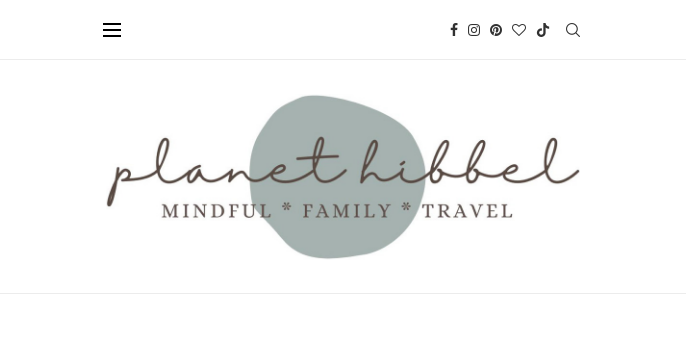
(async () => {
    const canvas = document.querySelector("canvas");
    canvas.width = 686;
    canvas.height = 355;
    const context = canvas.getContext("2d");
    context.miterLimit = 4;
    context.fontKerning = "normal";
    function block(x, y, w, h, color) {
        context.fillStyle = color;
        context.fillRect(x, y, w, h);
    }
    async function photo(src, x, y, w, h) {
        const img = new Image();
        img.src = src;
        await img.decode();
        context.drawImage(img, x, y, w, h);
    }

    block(0, 0, 686, 355, "rgb(255, 255, 255)");
    block(0, 59, 686, 1, "rgb(236, 236, 236)");
    block(103, 23, 18, 2, "rgb(0, 0, 0)");
    block(103, 29, 18, 2, "rgb(0, 0, 0)");
    block(103, 35, 18, 2, "rgb(0, 0, 0)");
    await photo("media/1.png", 450, 23, 8, 13);
    await photo("media/2.png", 468, 24, 12, 12);
    await photo("media/3.png", 490, 24, 12, 12);
    await photo("media/4.png", 512, 24, 14, 12);
    await photo("media/5.png", 536, 23, 14, 14);
    await photo("media/6.png", 566, 23, 14, 14);
    block(0, 293, 686, 1, "rgb(236, 236, 236)");
    await photo("media/7.png", 106, 94, 474, 166);
})();
